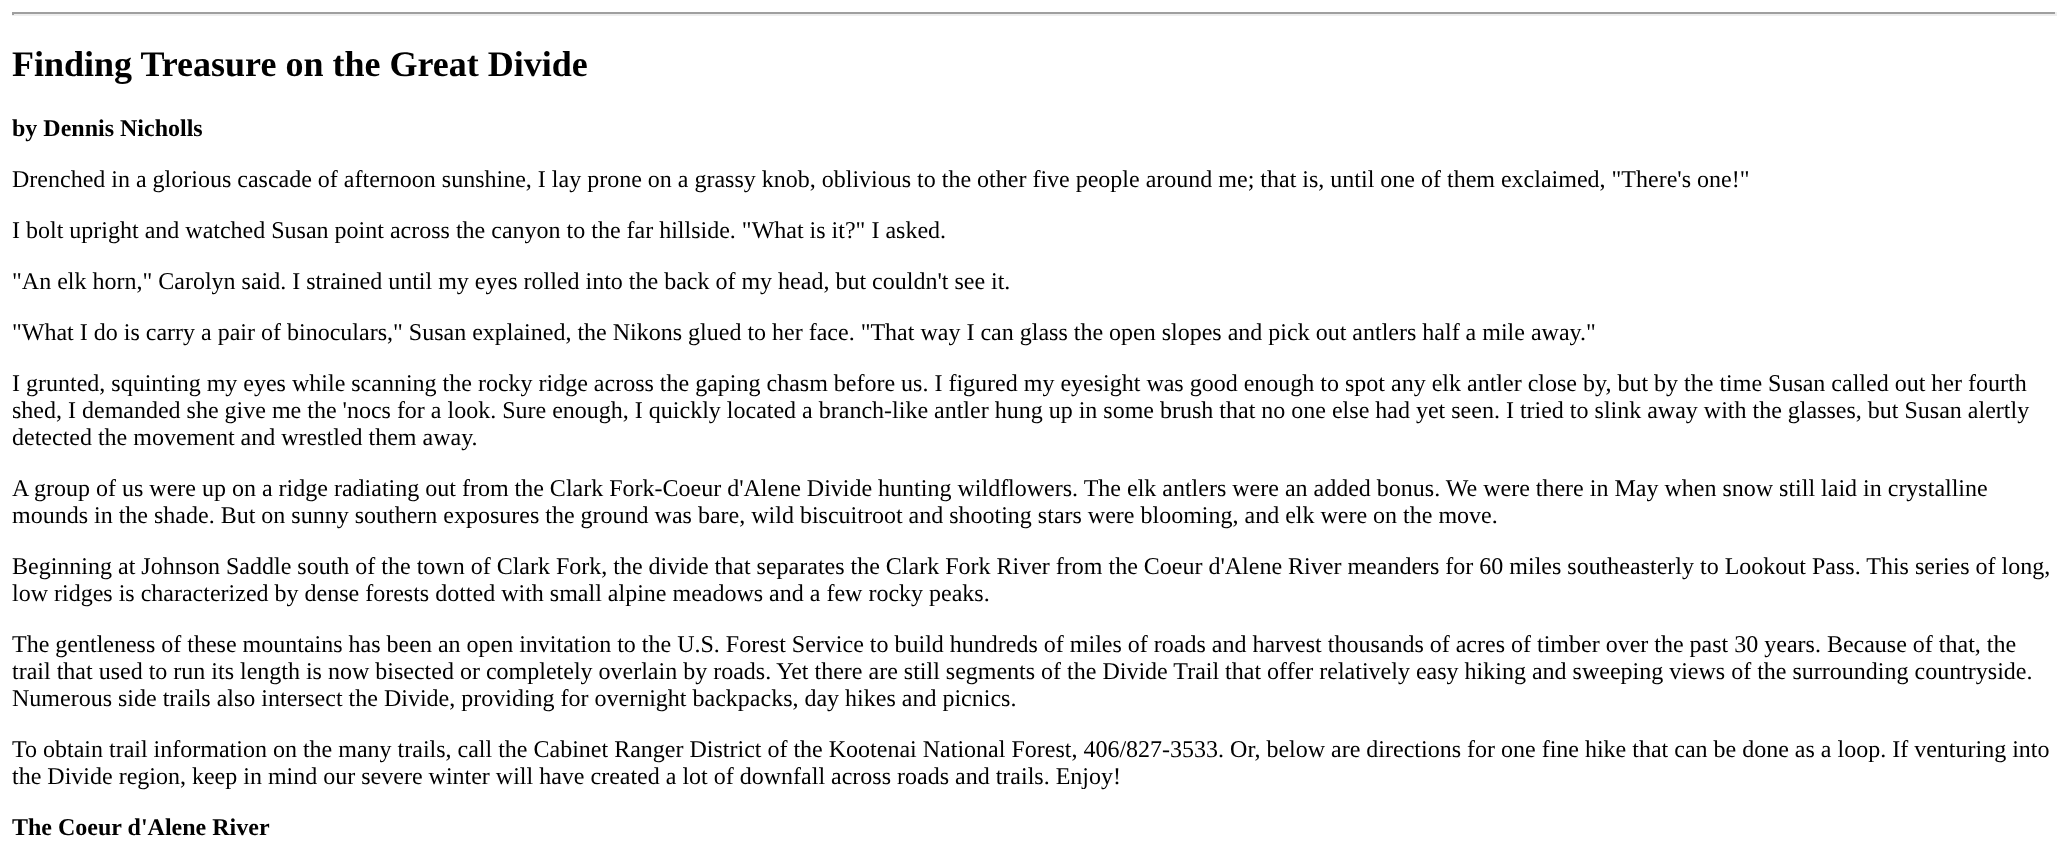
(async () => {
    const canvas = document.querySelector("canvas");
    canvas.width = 2068;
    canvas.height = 847;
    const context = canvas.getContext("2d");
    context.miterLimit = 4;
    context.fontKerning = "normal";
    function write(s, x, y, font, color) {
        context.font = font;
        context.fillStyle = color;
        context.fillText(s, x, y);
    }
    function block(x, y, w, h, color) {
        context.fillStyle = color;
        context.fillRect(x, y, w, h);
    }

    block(0, 0, 2068, 847, "rgb(255, 255, 255)");
    block(12, 12, 2045, 2, "rgb(159, 159, 159)");
    block(2055, 12, 2, 3, "rgb(238, 238, 238)");
    block(12, 14, 2045, 2, "rgb(238, 238, 238)");
    block(12, 12, 2, 3, "rgb(159, 159, 159)");
    write("Finding Treasure on the Great Divide", 12, 76, "bold 36px Liberation Serif", "rgb(0, 0, 0)");
    write("by Dennis Nicholls", 12, 136, "bold 24px Liberation Serif", "rgb(0, 0, 0)");
    write("Drenched in a glorious cascade of afternoon sunshine, I lay prone on a grassy knob, oblivious to the other five people around me; that is, until one of them exclaimed, \"There's one!\"", 12, 187, "24px Liberation Serif", "rgb(0, 0, 0)");
    write("I bolt upright and watched Susan point across the canyon to the far hillside. \"What is it?\" I asked.", 12, 238, "24px Liberation Serif", "rgb(0, 0, 0)");
    write("\"An elk horn,\" Carolyn said. I strained until my eyes rolled into the back of my head, but couldn't see it.", 12, 289, "24px Liberation Serif", "rgb(0, 0, 0)");
    write("\"What I do is carry a pair of binoculars,\" Susan explained, the Nikons glued to her face. \"That way I can glass the open slopes and pick out antlers half a mile away.\"", 12, 340, "24px Liberation Serif", "rgb(0, 0, 0)");
    write("I grunted, squinting my eyes while scanning the rocky ridge across the gaping chasm before us. I figured my eyesight was good enough to spot any elk antler close by, but by the time Susan called out her fourth", 12, 391, "24px Liberation Serif", "rgb(0, 0, 0)");
    write("shed, I demanded she give me the 'nocs for a look. Sure enough, I quickly located a branch-like antler hung up in some brush that no one else had yet seen. I tried to slink away with the glasses, but Susan alertly", 12, 418, "24px Liberation Serif", "rgb(0, 0, 0)");
    write("detected the movement and wrestled them away.", 12, 445, "24px Liberation Serif", "rgb(0, 0, 0)");
    write("A group of us were up on a ridge radiating out from the Clark Fork-Coeur d'Alene Divide hunting wildflowers. The elk antlers were an added bonus. We were there in May when snow still laid in crystalline", 12, 496, "24px Liberation Serif", "rgb(0, 0, 0)");
    write("mounds in the shade. But on sunny southern exposures the ground was bare, wild biscuitroot and shooting stars were blooming, and elk were on the move.", 12, 523, "24px Liberation Serif", "rgb(0, 0, 0)");
    write("Beginning at Johnson Saddle south of the town of Clark Fork, the divide that separates the Clark Fork River from the Coeur d'Alene River meanders for 60 miles southeasterly to Lookout Pass. This series of long,", 12, 574, "24px Liberation Serif", "rgb(0, 0, 0)");
    write("low ridges is characterized by dense forests dotted with small alpine meadows and a few rocky peaks.", 12, 601, "24px Liberation Serif", "rgb(0, 0, 0)");
    write("The gentleness of these mountains has been an open invitation to the U.S. Forest Service to build hundreds of miles of roads and harvest thousands of acres of timber over the past 30 years. Because of that, the", 12, 652, "24px Liberation Serif", "rgb(0, 0, 0)");
    write("trail that used to run its length is now bisected or completely overlain by roads. Yet there are still segments of the Divide Trail that offer relatively easy hiking and sweeping views of the surrounding countryside.", 12, 679, "24px Liberation Serif", "rgb(0, 0, 0)");
    write("Numerous side trails also intersect the Divide, providing for overnight backpacks, day hikes and picnics.", 12, 706, "24px Liberation Serif", "rgb(0, 0, 0)");
    write("To obtain trail information on the many trails, call the Cabinet Ranger District of the Kootenai National Forest, 406/827-3533. Or, below are directions for one fine hike that can be done as a loop. If venturing into", 12, 757, "24px Liberation Serif", "rgb(0, 0, 0)");
    write("the Divide region, keep in mind our severe winter will have created a lot of downfall across roads and trails. Enjoy!", 12, 784, "24px Liberation Serif", "rgb(0, 0, 0)");
    write("The Coeur d'Alene River", 12, 835, "bold 24px Liberation Serif", "rgb(0, 0, 0)");
})();
